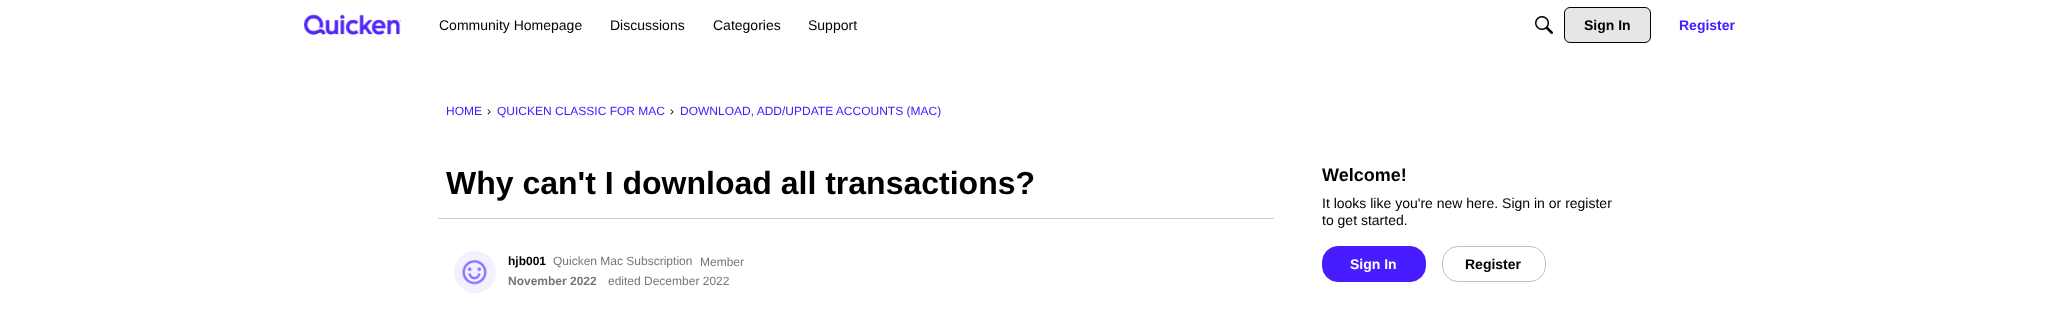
(async () => {
    const canvas = document.querySelector("canvas");
    canvas.width = 2059;
    canvas.height = 317;
    const context = canvas.getContext("2d");
    context.miterLimit = 4;
    context.fontKerning = "normal";
    function write(s, x, y, font, color) {
        context.font = font;
        context.fillStyle = color;
        context.fillText(s, x, y);
    }
    function block(x, y, w, h, color) {
        context.fillStyle = color;
        context.fillRect(x, y, w, h);
    }
    async function photo(src, x, y, w, h) {
        const img = new Image();
        img.src = src;
        await img.decode();
        context.drawImage(img, x, y, w, h);
    }

    block(0, 0, 2059, 317, "rgb(255, 255, 255)");
    await photo("media/1.png", 303, 14, 98, 22);
    write("Community Homepage", 439, 30, "14px Liberation Sans", "rgb(0, 0, 0)");
    write("Discussions", 610, 30, "14px Liberation Sans", "rgb(0, 0, 0)");
    write("Categories", 713, 30, "14px Liberation Sans", "rgb(0, 0, 0)");
    write("Support", 808, 30, "14px Liberation Sans", "rgb(0, 0, 0)");
    await photo("media/2.png", 1535, 16, 18, 18);
    context.fillStyle = "rgb(230, 230, 230)";
    context.beginPath();
    context.roundRect(1564.5, 7.5, 86, 35, 5.5);
    context.fill();
    context.strokeStyle = "rgb(0, 0, 0)";
    context.stroke();
    write("Sign In", 1584, 30, "bold 14px Liberation Sans", "rgb(0, 0, 0)");
    write("Register", 1679, 30, "bold 14px Liberation Sans", "rgb(71, 28, 255)");
    write("HOME", 446, 115, "12px Liberation Sans", "rgb(71, 28, 255)");
    write("›", 487, 115, "12px Liberation Sans", "rgb(0, 0, 0)");
    write("QUICKEN CLASSIC FOR MAC", 497, 115, "12px Liberation Sans", "rgb(71, 28, 255)");
    write("›", 670, 115, "12px Liberation Sans", "rgb(0, 0, 0)");
    write("DOWNLOAD, ADD/UPDATE ACCOUNTS (MAC)", 680, 115, "12px Liberation Sans", "rgb(71, 28, 255)");
    write("Why can't I download all transactions?", 446, 194, "bold 32px Liberation Sans", "rgb(0, 0, 0)");
    block(438, 218, 836, 1, "rgb(204, 204, 204)");
    await photo("media/3.png", 454, 251, 42, 42);
    write("hjb001", 508, 265, "bold 12px Liberation Sans", "rgb(0, 0, 0)");
    write("Quicken Mac Subscription", 553, 265, "12px Liberation Sans", "rgb(118, 118, 118)");
    write("Member", 700, 266, "12px Liberation Sans", "rgb(118, 118, 118)");
    write("November 2022", 508, 285, "bold 12px Liberation Sans", "rgb(118, 118, 118)");
    write("edited December 2022", 608, 285, "12px Liberation Sans", "rgb(118, 118, 118)");
    write("Welcome!", 1322, 181, "bold 18px Liberation Sans", "rgb(0, 0, 0)");
    write("It looks like you're new here. Sign in or register", 1322, 208, "14px Liberation Sans", "rgb(0, 0, 0)");
    write("to get started.", 1322, 225, "14px Liberation Sans", "rgb(0, 0, 0)");
    context.fillStyle = "rgb(71, 28, 255)";
    context.beginPath();
    context.roundRect(1322.5, 246.5, 103, 35, 15.5);
    context.fill();
    context.strokeStyle = "rgb(71, 28, 255)";
    context.stroke();
    write("Sign In", 1350, 269, "bold 14px Liberation Sans", "rgb(255, 255, 255)");
    context.beginPath();
    context.roundRect(1442.5, 246.5, 103, 35, 15.5);
    context.strokeStyle = "rgb(194, 194, 194)";
    context.stroke();
    write("Register", 1465, 269, "bold 14px Liberation Sans", "rgb(0, 0, 0)");
})();
